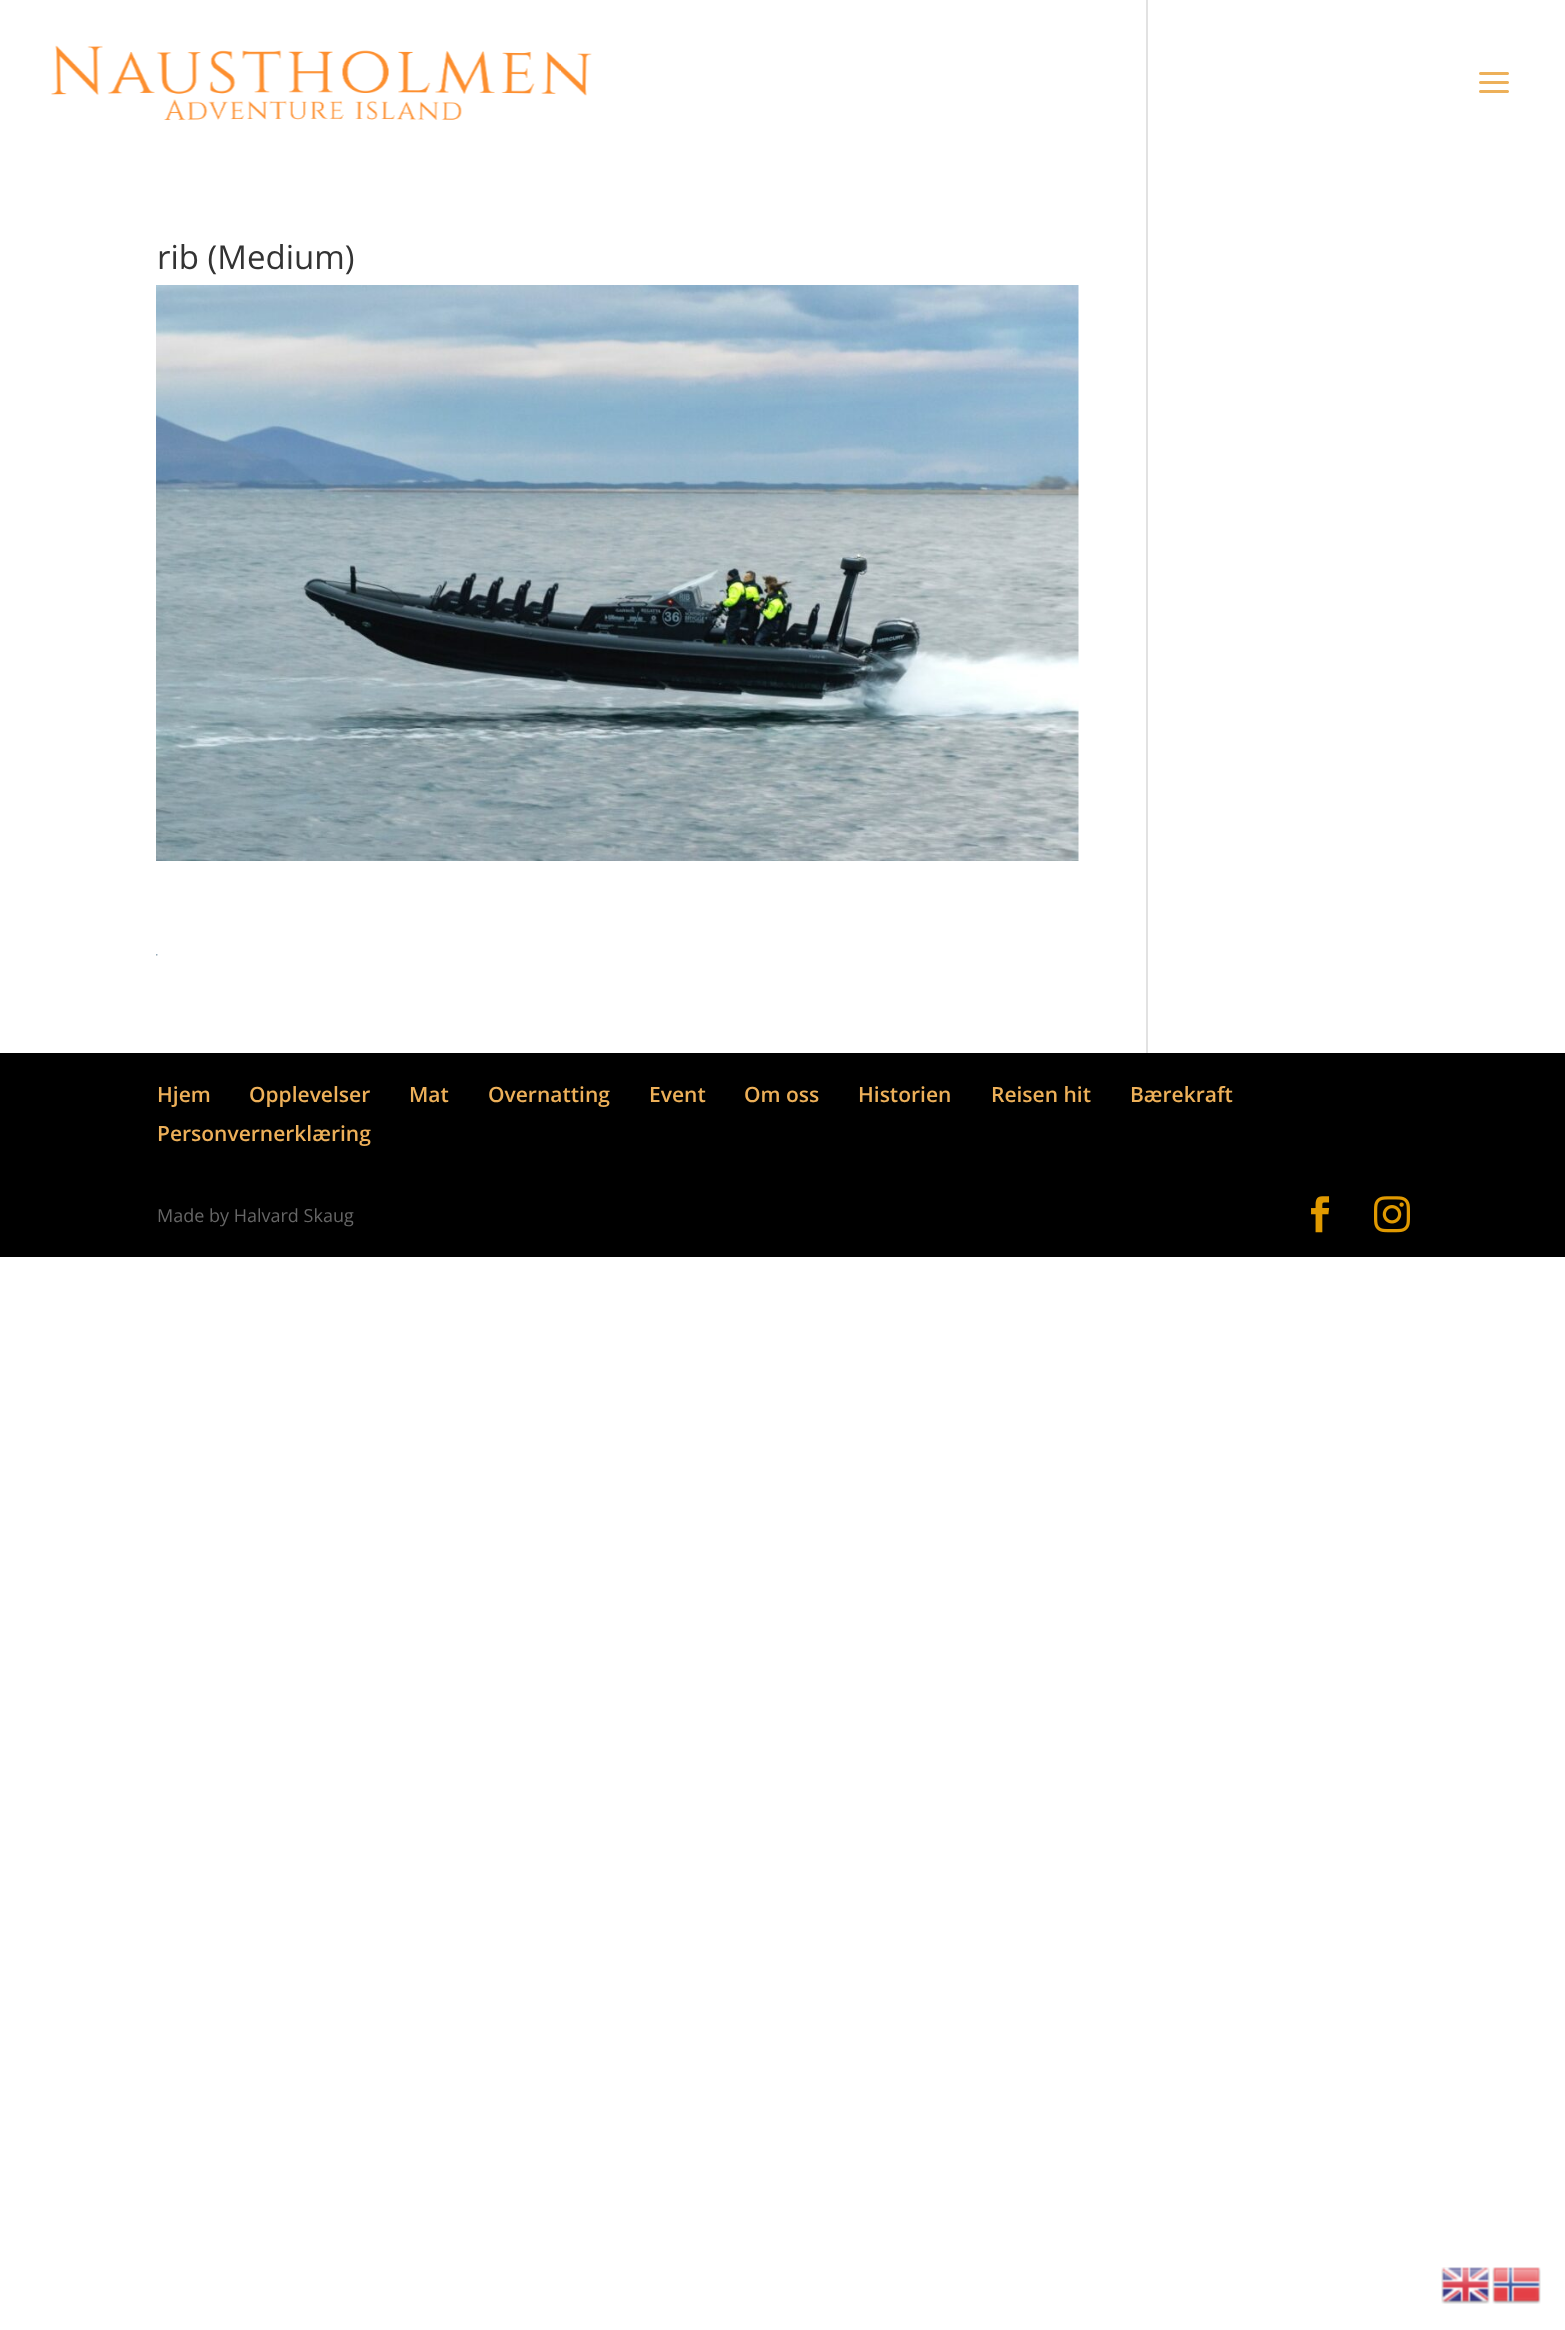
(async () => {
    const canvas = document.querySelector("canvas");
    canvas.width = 1565;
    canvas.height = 2330;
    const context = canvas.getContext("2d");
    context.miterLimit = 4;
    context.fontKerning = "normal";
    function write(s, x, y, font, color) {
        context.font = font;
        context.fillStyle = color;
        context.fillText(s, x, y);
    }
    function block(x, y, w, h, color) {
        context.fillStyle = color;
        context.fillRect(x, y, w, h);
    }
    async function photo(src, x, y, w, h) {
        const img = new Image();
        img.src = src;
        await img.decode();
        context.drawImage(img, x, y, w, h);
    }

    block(0, 0, 1565, 2330, "rgb(255, 255, 255)");
    await photo("media/1.png", 51, 45, 541, 75);
    await photo("media/2.png", 1479, 72, 30, 21);
    write("rib (Medium)", 157, 269, "33px Open Sans", "rgb(51, 51, 51)");
    await photo("media/3.png", 156, 285, 923, 576);
    await photo("media/4.png", 156, 954, 2, 2);
    block(1146, 0, 2, 1053, "rgb(226, 226, 226)");
    block(0, 1053, 1565, 204, "rgb(0, 0, 0)");
    write("Hjem", 157, 1102, "600 21px Open Sans", "rgb(237, 176, 89)");
    write("Opplevelser", 249, 1102, "600 21px Open Sans", "rgb(237, 176, 89)");
    write("Mat", 409, 1102, "600 21px Open Sans", "rgb(237, 176, 89)");
    write("Overnatting", 488, 1102, "600 21px Open Sans", "rgb(237, 176, 89)");
    write("Event", 649, 1102, "600 21px Open Sans", "rgb(237, 176, 89)");
    write("Om oss", 744, 1102, "600 21px Open Sans", "rgb(237, 176, 89)");
    write("Historien", 858, 1102, "600 21px Open Sans", "rgb(237, 176, 89)");
    write("Reisen hit", 991, 1102, "600 21px Open Sans", "rgb(237, 176, 89)");
    write("Bærekraft", 1130, 1102, "600 21px Open Sans", "rgb(237, 176, 89)");
    write("Personvernerklæring", 157, 1141, "600 21px Open Sans", "rgb(237, 176, 89)");
    write("Made by Halvard Skaug", 157, 1222, "18px Open Sans", "rgb(102, 102, 102)");
    await photo("media/5.png", 1311, 1196, 19, 37);
    await photo("media/6.png", 1374, 1196, 36, 37);
    await photo("media/7.png", 1441, 2267, 49, 37);
    await photo("media/8.png", 1492, 2267, 49, 37);
})();
